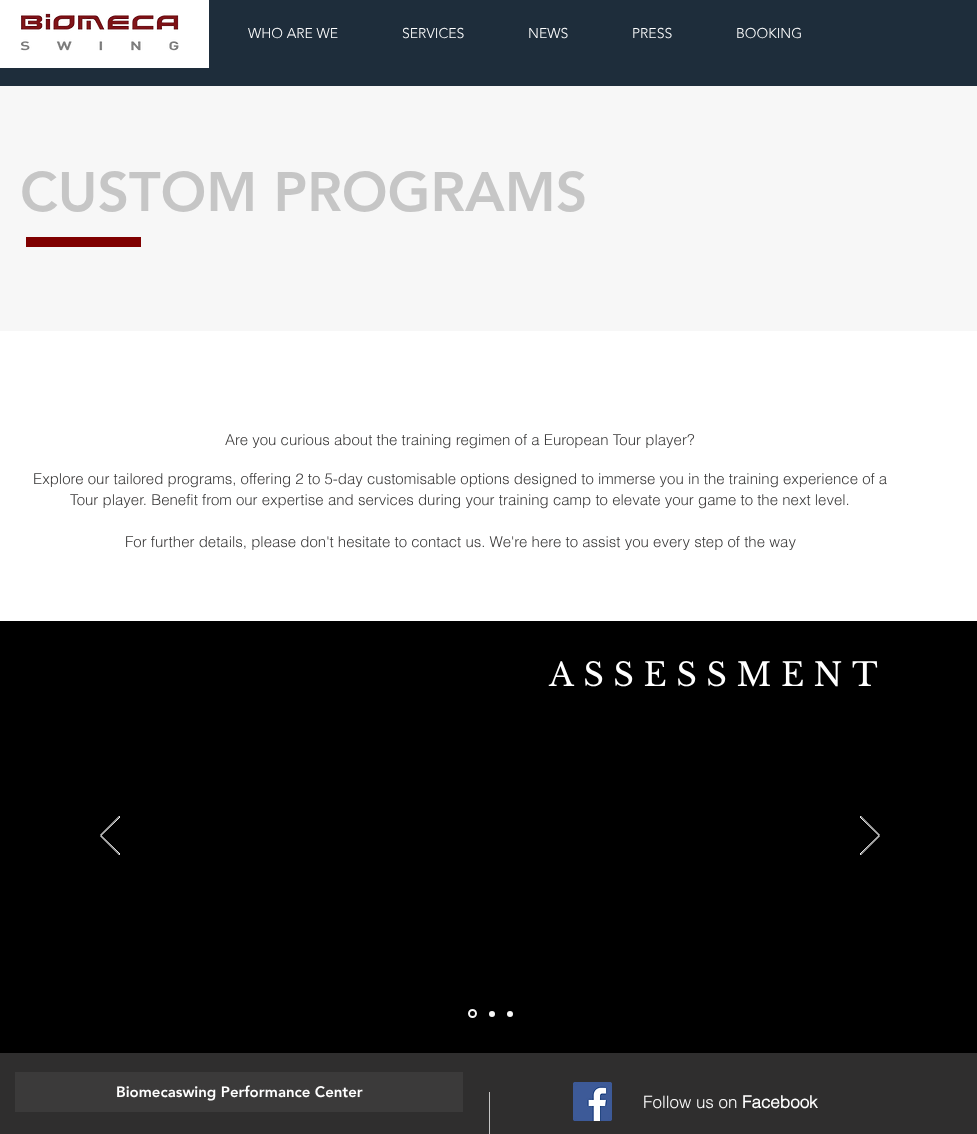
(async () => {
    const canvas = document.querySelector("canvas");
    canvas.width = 977;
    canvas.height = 1134;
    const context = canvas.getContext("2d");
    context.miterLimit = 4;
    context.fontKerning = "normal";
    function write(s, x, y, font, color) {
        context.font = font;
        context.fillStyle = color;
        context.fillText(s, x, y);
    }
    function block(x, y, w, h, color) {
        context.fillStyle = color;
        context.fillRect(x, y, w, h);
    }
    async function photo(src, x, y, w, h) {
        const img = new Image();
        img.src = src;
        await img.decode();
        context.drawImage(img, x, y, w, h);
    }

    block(0, 0, 977, 1134, "rgb(247, 247, 247)");
    block(0, 0, 977, 86, "rgb(30, 45, 59)");
    block(0, 0, 209, 68, "rgb(255, 255, 255)");
    await photo("media/1.png", 20, 13, 159, 38);
    write("WHO ARE WE", 248, 38, "300 14px 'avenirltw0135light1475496'", "rgb(255, 255, 255)");
    write("SERVICES", 402, 38, "300 14px 'avenirltw0135light1475496'", "rgb(255, 255, 255)");
    write("NEWS", 528, 38, "300 14px 'avenirltw0135light1475496'", "rgb(255, 255, 255)");
    write("PRESS", 632, 38, "300 14px 'avenirltw0135light1475496'", "rgb(255, 255, 255)");
    write("BOOKING", 736, 38, "300 14px 'avenirltw0135light1475496'", "rgb(255, 255, 255)");
    write("CUSTOM PROGRAMS", 20, 211, "900 55px 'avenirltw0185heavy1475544'", "rgb(198, 198, 198)");
    block(26, 237, 115, 10, "rgb(128, 0, 0)");
    block(0, 331, 977, 290, "rgb(255, 255, 255)");
    write("Are you curious about the training regimen of a European Tour player?", 225, 445, "300 15px helvetica", "rgb(59, 58, 58)");
    write("Explore our tailored programs, offering 2 to 5-day customisable options designed to immerse you in the training experience of a", 33, 484, "300 15px helvetica", "rgb(59, 58, 58)");
    write("Tour player. Benefit from our expertise and services during your training camp to elevate your game to the next level.", 70, 505, "300 15px helvetica", "rgb(59, 58, 58)");
    write("For further details, please don't hesitate to contact us. We're here to assist you every step of the way", 125, 547, "300 15px helvetica", "rgb(59, 58, 58)");
    block(0, 621, 977, 432, "rgb(0, 0, 0)");
    context.letterSpacing = "9.5px";
    write("ASSESSMENT", 549, 686, "32px Libre Baskerville", "rgb(255, 255, 255)");
    context.save();
    context.beginPath();
    context.rect(100, 816, 20, 39);
    context.clip();
    context.beginPath();
    context.moveTo(119.5, 855);
    context.lineTo(100, 835.5);
    context.lineTo(119.5, 816);
    context.lineTo(120, 817);
    context.lineTo(101, 835.5);
    context.lineTo(120, 854);
    context.closePath();
    context.strokeStyle = "rgb(247, 247, 247)";
    context.stroke();
    context.restore();
    context.save();
    context.beginPath();
    context.rect(860, 816, 20, 39);
    context.clip();
    context.beginPath();
    context.moveTo(860.5, 855);
    context.lineTo(880, 835.5);
    context.lineTo(860.5, 816);
    context.lineTo(860, 817);
    context.lineTo(879, 835.5);
    context.lineTo(860, 854);
    context.closePath();
    context.strokeStyle = "rgb(247, 247, 247)";
    context.stroke();
    context.restore();
    context.beginPath();
    context.arc(472.5, 1013.5, 3.5, 0, Math.PI * 2);
    context.strokeStyle = "rgb(247, 247, 247)";
    context.lineWidth = 2;
    context.stroke();
    context.fillStyle = "rgb(247, 247, 247)";
    context.beginPath();
    context.arc(492, 1014, 3, 0, Math.PI * 2);
    context.fill();
    context.beginPath();
    context.arc(510, 1014, 3, 0, Math.PI * 2);
    context.fill();
    block(0, 1053, 977, 81, "rgb(47, 46, 46)");
    block(15, 1072, 448, 40, "rgb(59, 58, 58)");
    context.letterSpacing = "0px";
    write("Biomecaswing Performance Center", 116, 1097, "900 15px 'avenirltw0185heavy1475544'", "rgb(255, 255, 255)");
    block(489, 1092, 1, 42, "rgb(198, 198, 198)");
    await photo("media/2.png", 573, 1082, 39, 39);
    write("Follow us on", 643, 1108, "300 17px helvetica", "rgb(255, 255, 255)");
    write("Facebook", 742, 1108, "bold 17px helvetica", "rgb(255, 255, 255)");
})();
